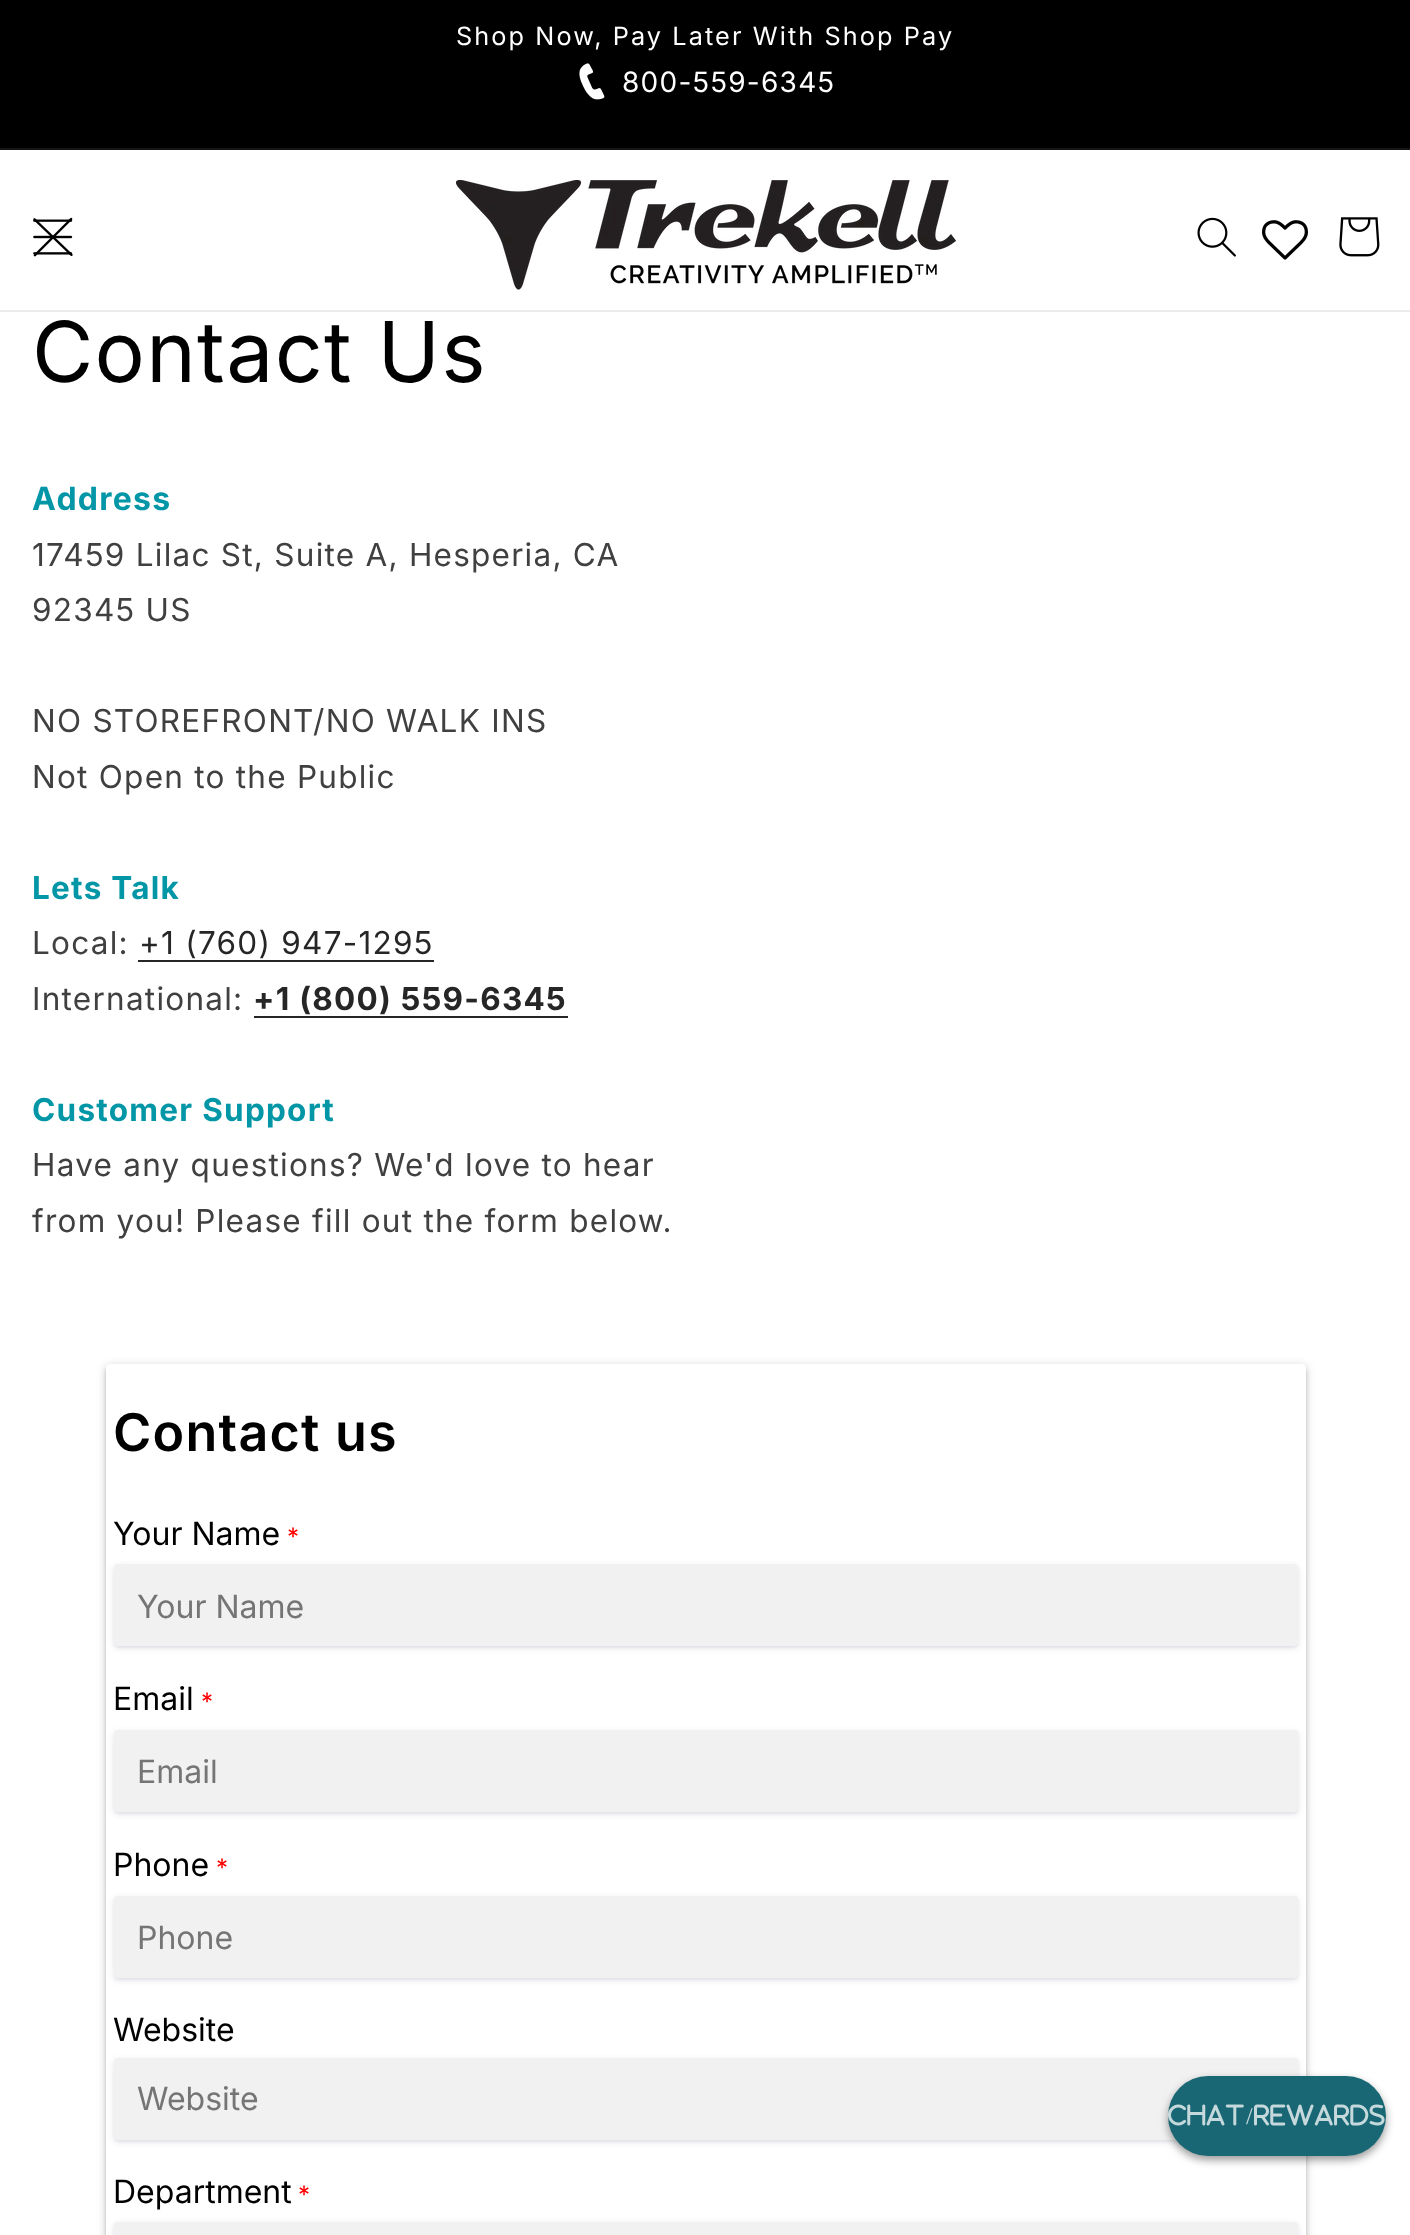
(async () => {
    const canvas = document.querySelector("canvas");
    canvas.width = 1410;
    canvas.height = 2235;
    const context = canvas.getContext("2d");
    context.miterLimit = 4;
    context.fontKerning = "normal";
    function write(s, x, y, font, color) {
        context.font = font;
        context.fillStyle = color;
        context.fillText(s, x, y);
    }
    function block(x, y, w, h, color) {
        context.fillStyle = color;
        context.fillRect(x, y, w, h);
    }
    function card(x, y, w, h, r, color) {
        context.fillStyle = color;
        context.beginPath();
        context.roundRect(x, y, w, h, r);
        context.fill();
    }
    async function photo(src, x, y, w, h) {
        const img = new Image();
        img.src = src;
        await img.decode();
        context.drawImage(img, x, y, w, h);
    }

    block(0, 0, 1410, 2235, "rgb(255, 255, 255)");
    block(0, 0, 1410, 148, "rgb(0, 0, 0)");
    block(0, 148, 1410, 2, "rgb(20, 20, 20)");
    context.letterSpacing = "2.1px";
    write("Shop Now, Pay Later With Shop Pay", 456, 45, "25.25px Inter", "rgb(255, 255, 255)");
    await photo("media/1.png", 579, 63, 26, 37);
    context.letterSpacing = "1.25px";
    write("800-559-6345", 622, 92, "28px Inter", "rgb(255, 255, 255)");
    block(0, 310, 1410, 2, "rgb(235, 235, 235)");
    await photo("media/3.png", 33, 219, 40, 36);
    await photo("media/2.png", 33, 217, 40, 40);
    await photo("media/4.png", 456, 180, 500, 110);
    await photo("media/5.png", 1197, 217, 39, 40);
    await photo("media/6.png", 1262, 220, 46, 40);
    await photo("media/7.png", 1339, 217, 41, 40);
    write("Contact Us", 32, 382, "84px Inter", "rgb(0, 0, 0)");
    write("Address", 32, 510, "bold 32px Inter", "rgb(3, 150, 166)");
    write("17459 Lilac St, Suite A, Hesperia, CA", 32, 566, "31.5px Inter", "rgb(64, 64, 64)");
    write("92345 US", 32, 621, "31.5px Inter", "rgb(64, 64, 64)");
    write("NO STOREFRONT/NO WALK INS", 32, 732, "31.5px Inter", "rgb(64, 64, 64)");
    write("Not Open to the Public", 32, 788, "31.5px Inter", "rgb(64, 64, 64)");
    write("Lets Talk", 32, 899, "bold 31.5px Inter", "rgb(3, 150, 166)");
    write("Local:", 32, 954, "31.5px Inter", "rgb(64, 64, 64)");
    write("+1 (760) 947-1295", 139, 954, "31.5px Inter", "rgb(38, 38, 38)");
    block(138, 960, 296, 2, "rgb(38, 38, 38)");
    write("International:", 32, 1010, "31.5px Inter", "rgb(64, 64, 64)");
    write("+1 (800) 559-6345", 253, 1010, "bold 31.5px Inter", "rgb(38, 38, 38)");
    block(254, 1016, 314, 2, "rgb(38, 38, 38)");
    write("Customer Support", 32, 1121, "bold 31.5px Inter", "rgb(3, 150, 166)");
    write("Have any questions? We'd love to hear", 32, 1176, "31.5px Inter", "rgb(64, 64, 64)");
    write("from you! Please fill out the form below.", 32, 1232, "31.5px Inter", "rgb(64, 64, 64)");
    context.save();
    context.beginPath();
    context.moveTo(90, 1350);
    context.lineTo(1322, 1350);
    context.lineTo(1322, 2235);
    context.lineTo(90, 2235);
    context.closePath();
    context.moveTo(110, 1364);
    context.lineTo(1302, 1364);
    context.bezierCurveTo(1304, 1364, 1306, 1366, 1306, 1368);
    context.lineTo(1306, 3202);
    context.bezierCurveTo(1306, 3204, 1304, 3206, 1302, 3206);
    context.lineTo(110, 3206);
    context.bezierCurveTo(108, 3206, 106, 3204, 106, 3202);
    context.lineTo(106, 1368);
    context.bezierCurveTo(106, 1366, 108, 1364, 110, 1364);
    context.closePath();
    context.clip("evenodd");
    context.fillStyle = "rgba(0, 0, 0, 0.2)";
    context.filter = "blur(5px)";
    context.beginPath();
    context.roundRect(106, 1366, 1200, 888, 4);
    context.fill();
    context.filter = "none";
    context.restore();
    context.save();
    context.beginPath();
    context.moveTo(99, 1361);
    context.lineTo(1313, 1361);
    context.lineTo(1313, 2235);
    context.lineTo(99, 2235);
    context.closePath();
    context.moveTo(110, 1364);
    context.lineTo(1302, 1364);
    context.bezierCurveTo(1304, 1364, 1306, 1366, 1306, 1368);
    context.lineTo(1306, 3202);
    context.bezierCurveTo(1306, 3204, 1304, 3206, 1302, 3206);
    context.lineTo(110, 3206);
    context.bezierCurveTo(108, 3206, 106, 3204, 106, 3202);
    context.lineTo(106, 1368);
    context.bezierCurveTo(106, 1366, 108, 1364, 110, 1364);
    context.closePath();
    context.clip("evenodd");
    context.fillStyle = "rgba(0, 0, 0, 0.14)";
    context.filter = "blur(2px)";
    context.beginPath();
    context.roundRect(106, 1368, 1200, 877, 4);
    context.fill();
    context.filter = "none";
    context.restore();
    write("Contact us", 113, 1451, "600 52px Inter", "rgb(0, 0, 0)");
    context.letterSpacing = "0px";
    write("Your Name", 113, 1545, "32px Inter", "rgb(0, 0, 0)");
    write("*", 287, 1545, "24px Inter", "rgb(255, 0, 0)");
    context.fillStyle = "rgb(250, 250, 250)";
    context.beginPath();
    context.moveTo(114, 1642);
    context.lineTo(114, 1644);
    context.bezierCurveTo(114, 1646, 116, 1648, 118, 1648);
    context.lineTo(1294, 1648);
    context.bezierCurveTo(1296, 1648, 1298, 1646, 1298, 1644);
    context.lineTo(1298, 1642);
    context.bezierCurveTo(1298, 1644, 1296, 1646, 1294, 1646);
    context.lineTo(118, 1646);
    context.bezierCurveTo(116, 1646, 114, 1644, 114, 1642);
    context.closePath();
    context.fill();
    context.fillStyle = "rgba(50, 50, 93, 0.15)";
    context.filter = "blur(3px)";
    context.beginPath();
    context.roundRect(114, 1566, 1184, 82, 4);
    context.fill();
    context.filter = "none";
    card(114, 1564, 1184, 82, 4, "rgb(241, 241, 241)");
    write("Your Name", 137, 1618, "32px Inter", "rgb(117, 117, 117)");
    write("Email", 113, 1710, "32px Inter", "rgb(0, 0, 0)");
    write("*", 201, 1710, "24px Inter", "rgb(255, 0, 0)");
    context.fillStyle = "rgb(250, 250, 250)";
    context.beginPath();
    context.moveTo(114, 1808);
    context.lineTo(114, 1810);
    context.bezierCurveTo(114, 1812, 116, 1814, 118, 1814);
    context.lineTo(1294, 1814);
    context.bezierCurveTo(1296, 1814, 1298, 1812, 1298, 1810);
    context.lineTo(1298, 1808);
    context.bezierCurveTo(1298, 1810, 1296, 1812, 1294, 1812);
    context.lineTo(118, 1812);
    context.bezierCurveTo(116, 1812, 114, 1810, 114, 1808);
    context.closePath();
    context.fill();
    context.fillStyle = "rgba(50, 50, 93, 0.15)";
    context.filter = "blur(3px)";
    context.beginPath();
    context.roundRect(114, 1732, 1184, 82, 4);
    context.fill();
    context.filter = "none";
    card(114, 1730, 1184, 82, 4, "rgb(241, 241, 241)");
    write("Email", 137, 1783, "32px Inter", "rgb(117, 117, 117)");
    write("Phone", 113, 1876, "32px Inter", "rgb(0, 0, 0)");
    write("*", 216, 1876, "24px Inter", "rgb(255, 0, 0)");
    context.fillStyle = "rgb(250, 250, 250)";
    context.beginPath();
    context.moveTo(114, 1974);
    context.lineTo(114, 1976);
    context.bezierCurveTo(114, 1978, 116, 1980, 118, 1980);
    context.lineTo(1294, 1980);
    context.bezierCurveTo(1296, 1980, 1298, 1978, 1298, 1976);
    context.lineTo(1298, 1974);
    context.bezierCurveTo(1298, 1976, 1296, 1978, 1294, 1978);
    context.lineTo(118, 1978);
    context.bezierCurveTo(116, 1978, 114, 1976, 114, 1974);
    context.closePath();
    context.fill();
    context.fillStyle = "rgba(50, 50, 93, 0.15)";
    context.filter = "blur(3px)";
    context.beginPath();
    context.roundRect(114, 1898, 1184, 82, 4);
    context.fill();
    context.filter = "none";
    card(114, 1896, 1184, 82, 4, "rgb(241, 241, 241)");
    write("Phone", 137, 1949, "32px Inter", "rgb(117, 117, 117)");
    write("Website", 113, 2041, "32px Inter", "rgb(0, 0, 0)");
    context.fillStyle = "rgb(250, 250, 250)";
    context.beginPath();
    context.moveTo(114, 2136);
    context.lineTo(114, 2138);
    context.bezierCurveTo(114, 2140, 116, 2142, 118, 2142);
    context.lineTo(1294, 2142);
    context.bezierCurveTo(1296, 2142, 1298, 2140, 1298, 2138);
    context.lineTo(1298, 2136);
    context.bezierCurveTo(1298, 2138, 1296, 2140, 1294, 2140);
    context.lineTo(118, 2140);
    context.bezierCurveTo(116, 2140, 114, 2138, 114, 2136);
    context.closePath();
    context.fill();
    context.fillStyle = "rgba(50, 50, 93, 0.15)";
    context.filter = "blur(3px)";
    context.beginPath();
    context.roundRect(114, 2060, 1184, 82, 4);
    context.fill();
    context.filter = "none";
    card(114, 2058, 1184, 82, 4, "rgb(241, 241, 241)");
    write("Website", 137, 2110, "32px Inter", "rgb(117, 117, 117)");
    write("Department", 113, 2203, "32px Inter", "rgb(0, 0, 0)");
    write("*", 298, 2203, "24px Inter", "rgb(255, 0, 0)");
    context.fillStyle = "rgba(50, 50, 93, 0.15)";
    context.filter = "blur(3px)";
    context.beginPath();
    context.roundRect(114, 2224, 1184, 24, 4);
    context.fill();
    context.filter = "none";
    card(114, 2222, 1184, 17, 4, "rgb(241, 241, 241)");
    context.fillStyle = "rgba(0, 0, 0, 0.4)";
    context.filter = "blur(4px)";
    context.beginPath();
    context.roundRect(1168, 2080, 218, 80, 40);
    context.fill();
    context.filter = "none";
    card(1168, 2076, 218, 80, 40, "rgb(25, 103, 116)");
    await photo("media/8.png", 1168, 2104, 76, 22);
    context.letterSpacing = "1.25px";
    write("/", 1246, 2124, "24px Liberation Serif", "rgb(198, 217, 220)");
    await photo("media/9.png", 1254, 2104, 131, 22);
})();
